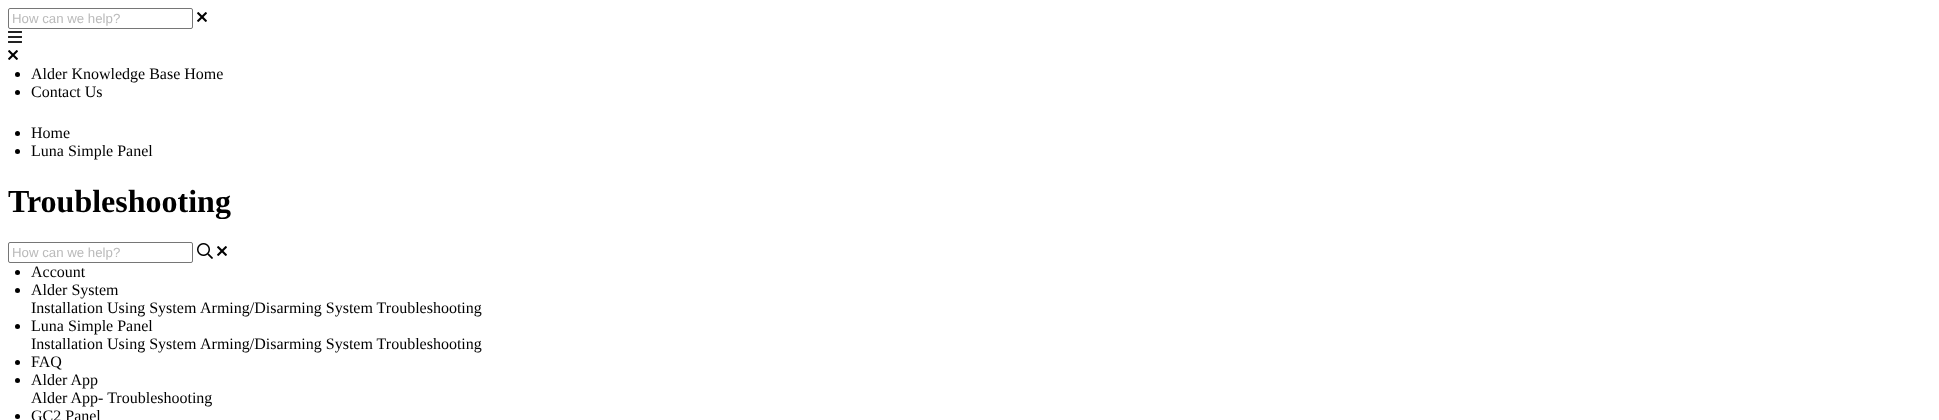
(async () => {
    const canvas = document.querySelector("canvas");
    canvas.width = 1939;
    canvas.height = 420;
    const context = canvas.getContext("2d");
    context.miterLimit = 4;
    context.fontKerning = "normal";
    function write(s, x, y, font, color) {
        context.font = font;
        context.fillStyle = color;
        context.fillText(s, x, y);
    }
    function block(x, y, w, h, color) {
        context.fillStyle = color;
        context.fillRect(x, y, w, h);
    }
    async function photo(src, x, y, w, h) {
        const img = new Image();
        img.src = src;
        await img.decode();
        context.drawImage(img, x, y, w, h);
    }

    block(0, 0, 1939, 420, "rgb(255, 255, 255)");
    context.beginPath();
    context.roundRect(8.5, 8.5, 184, 20, 1.5);
    context.strokeStyle = "rgb(118, 118, 118)";
    context.stroke();
    write("How can we help?", 12, 23, "13.25px Liberation Sans", "rgb(186, 186, 186)");
    await photo("media/1.png", 197, 12, 10, 10);
    await photo("media/2.png", 8, 31, 14, 12);
    await photo("media/1.png", 8, 50, 10, 10);
    context.fillStyle = "rgb(0, 0, 0)";
    context.beginPath();
    context.arc(17.5, 74.5, 2.5, 0, Math.PI * 2);
    context.fill();
    write("Alder Knowledge Base Home", 31, 79, "16px Liberation Serif", "rgb(0, 0, 0)");
    context.beginPath();
    context.arc(17.5, 92.5, 2.5, 0, Math.PI * 2);
    context.fill();
    write("Contact Us", 31, 97, "16px Liberation Serif", "rgb(0, 0, 0)");
    context.beginPath();
    context.arc(17.5, 133.5, 2.5, 0, Math.PI * 2);
    context.fill();
    write("Home", 31, 138, "16px Liberation Serif", "rgb(0, 0, 0)");
    context.beginPath();
    context.arc(17.5, 151.5, 2.5, 0, Math.PI * 2);
    context.fill();
    write("Luna Simple Panel", 31, 156, "16px Liberation Serif", "rgb(0, 0, 0)");
    write("Troubleshooting", 8, 212, "bold 32px Liberation Serif", "rgb(0, 0, 0)");
    context.beginPath();
    context.roundRect(8.5, 242.5, 184, 20, 1.5);
    context.stroke();
    write("How can we help?", 12, 257, "13.25px Liberation Sans", "rgb(186, 186, 186)");
    await photo("media/3.png", 197, 243, 16, 16);
    await photo("media/1.png", 217, 246, 10, 10);
    context.fillStyle = "rgb(0, 0, 0)";
    context.beginPath();
    context.arc(17.5, 272.5, 2.5, 0, Math.PI * 2);
    context.fill();
    write("Account", 31, 277, "16px Liberation Serif", "rgb(0, 0, 0)");
    context.beginPath();
    context.arc(17.5, 290.5, 2.5, 0, Math.PI * 2);
    context.fill();
    write("Alder System", 31, 295, "16px Liberation Serif", "rgb(0, 0, 0)");
    write("Installation Using System", 31, 313, "16px Liberation Serif", "rgb(0, 0, 0)");
    write("Arming/Disarming System Troubleshooting", 200, 313, "16px Liberation Serif", "rgb(0, 0, 0)");
    context.beginPath();
    context.arc(17.5, 326.5, 2.5, 0, Math.PI * 2);
    context.fill();
    write("Luna Simple Panel", 31, 331, "16px Liberation Serif", "rgb(0, 0, 0)");
    write("Installation Using System", 31, 349, "16px Liberation Serif", "rgb(0, 0, 0)");
    write("Arming/Disarming System Troubleshooting", 200, 349, "16px Liberation Serif", "rgb(0, 0, 0)");
    context.beginPath();
    context.arc(17.5, 362.5, 2.5, 0, Math.PI * 2);
    context.fill();
    write("FAQ", 31, 367, "16px Liberation Serif", "rgb(0, 0, 0)");
    context.beginPath();
    context.arc(17.5, 380.5, 2.5, 0, Math.PI * 2);
    context.fill();
    write("Alder App", 31, 385, "16px Liberation Serif", "rgb(0, 0, 0)");
    write("Alder App- Troubleshooting", 31, 403, "16px Liberation Serif", "rgb(0, 0, 0)");
    context.beginPath();
    context.arc(17.5, 416.5, 2.5, 0, Math.PI * 2);
    context.fill();
    write("GC2 Panel", 31, 421, "16px Liberation Serif", "rgb(0, 0, 0)");
})();
